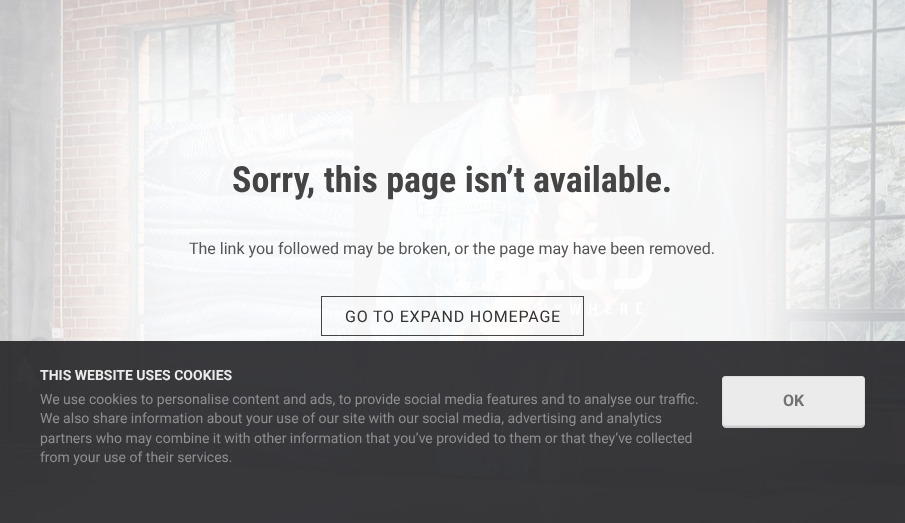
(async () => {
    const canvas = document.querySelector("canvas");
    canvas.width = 905;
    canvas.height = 523;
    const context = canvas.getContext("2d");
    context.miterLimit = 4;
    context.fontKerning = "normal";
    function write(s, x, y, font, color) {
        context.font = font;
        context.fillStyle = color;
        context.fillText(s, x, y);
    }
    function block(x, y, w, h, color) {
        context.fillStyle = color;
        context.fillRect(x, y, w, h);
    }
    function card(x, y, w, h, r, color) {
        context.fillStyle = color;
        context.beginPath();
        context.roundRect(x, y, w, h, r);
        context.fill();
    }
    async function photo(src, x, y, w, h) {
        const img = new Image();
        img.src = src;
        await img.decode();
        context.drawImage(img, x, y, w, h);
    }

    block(0, 0, 905, 523, "rgb(255, 255, 255)");
    await photo("media/1.png", 0, 0, 905, 523);
    context.save();
    context.beginPath();
    context.moveTo(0, 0);
    context.lineTo(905, 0);
    context.lineTo(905, 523);
    context.lineTo(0, 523);
    context.closePath();
    context.moveTo(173, 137);
    context.lineTo(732, 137);
    context.lineTo(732, 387);
    context.lineTo(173, 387);
    context.closePath();
    context.clip("evenodd");
    context.fillStyle = "rgba(255, 255, 255, 0.85)";
    context.filter = "blur(50px)";
    context.beginPath();
    context.rect(73, 37, 759, 450);
    context.fill();
    context.filter = "none";
    context.restore();
    block(173, 137, 559, 250, "rgba(255, 255, 255, 0.85)");
    write("Sorry, this page isn’t available.", 232, 192, "bold 36px Roboto Condensed", "rgb(68, 68, 68)");
    write("The link you followed may be broken, or the page may have been removed.", 189, 254, "16px Roboto", "rgb(85, 85, 85)");
    context.strokeStyle = "rgb(68, 68, 68)";
    context.strokeRect(321.5, 296.5, 262, 39);
    context.letterSpacing = "0.8px";
    write("GO TO EXPAND HOMEPAGE", 345, 322, "16px Roboto", "rgb(51, 51, 51)");
    block(0, 341, 905, 182, "rgba(36, 36, 39, 0.9)");
    context.letterSpacing = "0px";
    write("THIS WEBSITE USES COOKIES", 40, 380, "bold 14px Roboto", "rgb(235, 235, 235)");
    write("We use cookies to personalise content and ads, to provide social media features and to analyse our traffic.", 40, 404, "14px Roboto", "rgb(143, 143, 144)");
    write("We also share information about your use of our site with our social media, advertising and analytics", 40, 423, "14px Roboto", "rgb(143, 143, 144)");
    write("partners who may combine it with other information that you’ve provided to them or that they’ve collected", 40, 443, "14px Roboto", "rgb(143, 143, 144)");
    write("from your use of their services.", 40, 462, "14px Roboto", "rgb(143, 143, 144)");
    context.fillStyle = "rgba(221, 221, 221, 0.9)";
    context.beginPath();
    context.moveTo(722, 422);
    context.lineTo(722, 424);
    context.bezierCurveTo(722, 426, 724, 428, 726, 428);
    context.lineTo(861, 428);
    context.bezierCurveTo(863, 428, 865, 426, 865, 424);
    context.lineTo(865, 422);
    context.bezierCurveTo(865, 424, 863, 426, 861, 426);
    context.lineTo(726, 426);
    context.bezierCurveTo(724, 426, 722, 424, 722, 422);
    context.closePath();
    context.fill();
    card(722, 376, 143, 50, 4, "rgba(255, 255, 255, 0.9)");
    context.beginPath();
    context.roundRect(722.5, 376.5, 142, 49, 3.5);
    context.strokeStyle = "rgba(221, 221, 221, 0.9)";
    context.stroke();
    write("OK", 783, 406, "bold 16px Roboto", "rgb(115, 115, 115)");
})();
